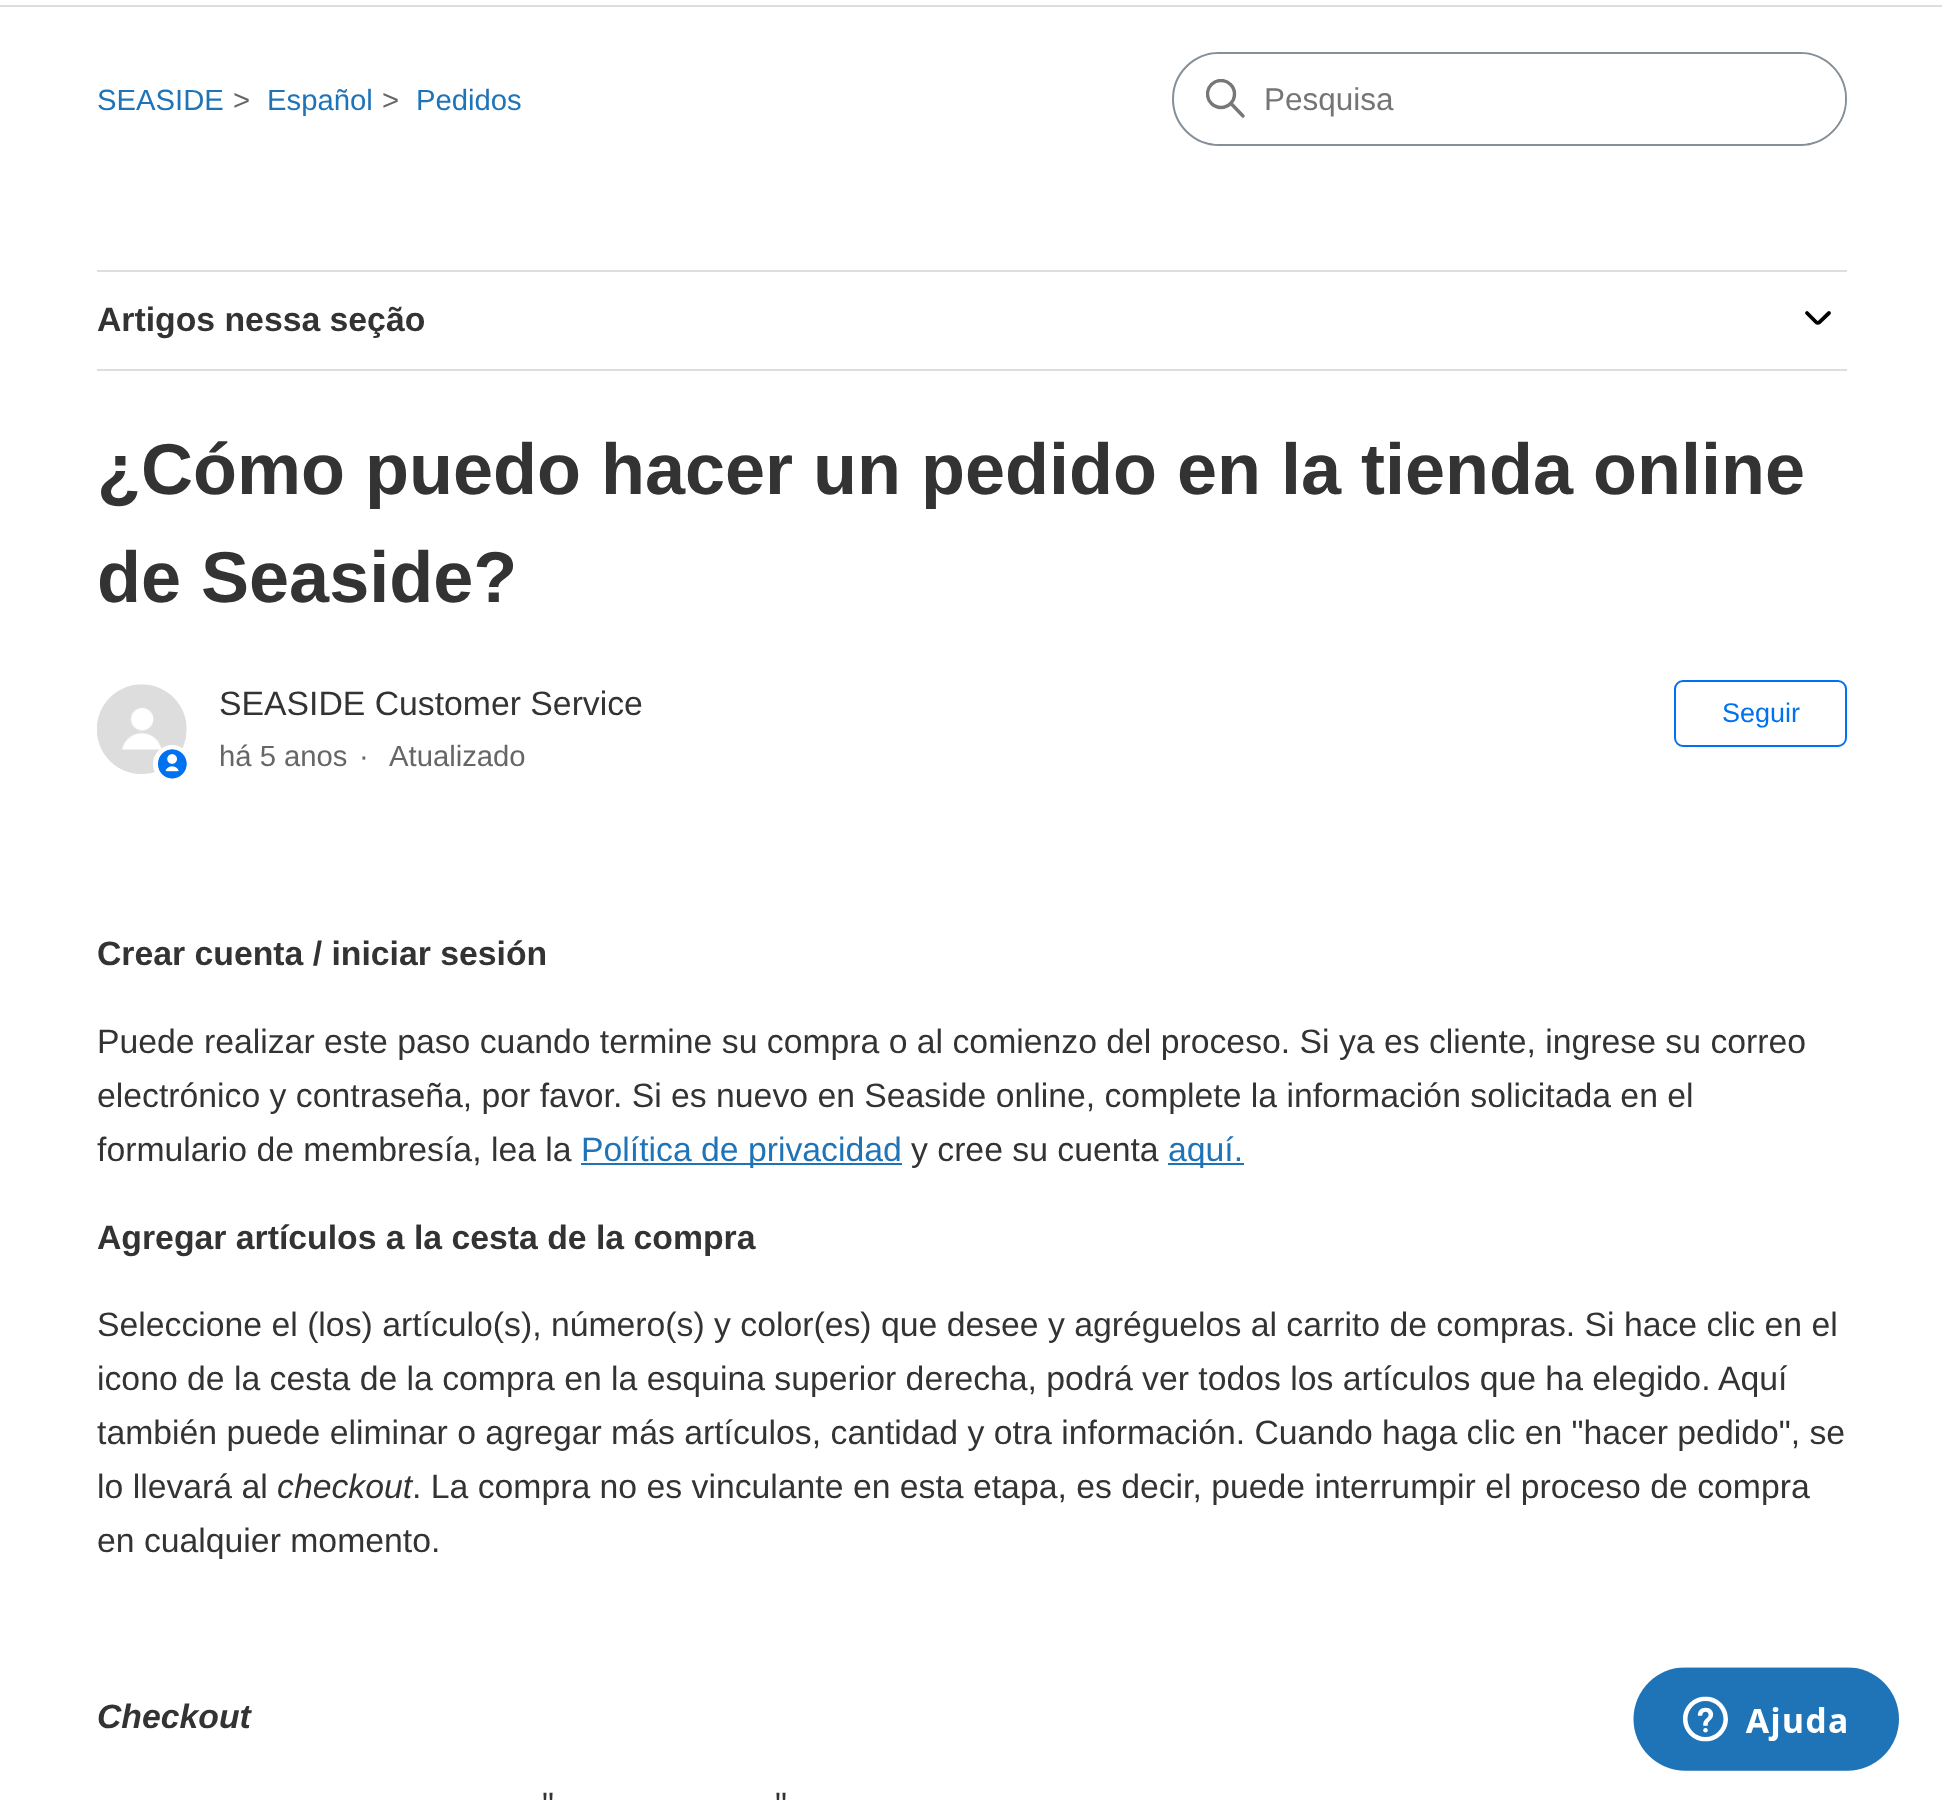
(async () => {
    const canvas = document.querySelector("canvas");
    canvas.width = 1942;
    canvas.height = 1802;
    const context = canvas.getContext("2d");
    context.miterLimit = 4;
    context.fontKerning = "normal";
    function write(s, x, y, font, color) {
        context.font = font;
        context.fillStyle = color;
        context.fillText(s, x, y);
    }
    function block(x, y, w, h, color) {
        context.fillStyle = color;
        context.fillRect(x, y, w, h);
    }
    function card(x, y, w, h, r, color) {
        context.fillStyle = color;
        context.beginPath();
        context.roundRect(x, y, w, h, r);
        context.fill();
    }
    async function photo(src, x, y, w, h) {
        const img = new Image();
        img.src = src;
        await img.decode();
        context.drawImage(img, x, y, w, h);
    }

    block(0, 0, 1942, 1802, "rgb(255, 255, 255)");
    block(0, 5, 1942, 2, "rgb(221, 221, 221)");
    write("SEASIDE", 97, 110, "29.25px Liberation Sans", "rgb(31, 115, 183)");
    write(">", 233, 110, "29.25px Liberation Sans", "rgb(102, 102, 102)");
    write("Español", 267, 110, "29.25px Liberation Sans", "rgb(31, 115, 183)");
    write(">", 382, 110, "29.25px Liberation Sans", "rgb(102, 102, 102)");
    write("Pedidos", 416, 110, "29.25px Liberation Sans", "rgb(31, 115, 183)");
    context.beginPath();
    context.roundRect(1173, 53, 673, 92, 46);
    context.strokeStyle = "rgb(132, 143, 153)";
    context.lineWidth = 2;
    context.stroke();
    card(1175, 54, 670, 90, 45, "rgb(255, 255, 255)");
    context.save();
    context.beginPath();
    context.rect(1206, 79, 41, 40);
    context.clip();
    context.beginPath();
    context.arc(1221, 94, 13.5, 0, Math.PI * 2);
    context.strokeStyle = "rgb(119, 119, 119)";
    context.lineWidth = 3.4;
    context.stroke();
    context.restore();
    context.beginPath();
    context.moveTo(1243, 116);
    context.lineTo(1231.5, 104);
    context.strokeStyle = "rgb(119, 119, 119)";
    context.lineWidth = 3.4;
    context.lineCap = "round";
    context.stroke();
    write("Pesquisa", 1264, 110, "31.5px Liberation Sans", "rgb(117, 117, 117)");
    block(97, 270, 1750, 2, "rgb(221, 221, 221)");
    block(97, 369, 1750, 2, "rgb(221, 221, 221)");
    write("Artigos nessa seção", 97, 331, "bold 33.75px Liberation Sans", "rgb(51, 51, 51)");
    context.beginPath();
    context.moveTo(1807, 313);
    context.lineTo(1816.5, 322.5);
    context.bezierCurveTo(1817, 323, 1818.5, 323, 1819, 322.5);
    context.lineTo(1829, 313);
    context.strokeStyle = "rgb(0, 0, 0)";
    context.lineWidth = 3.8;
    context.stroke();
    write("¿Cómo puedo hacer un pedido en la tienda online", 97, 494, "bold 72px Liberation Sans", "rgb(51, 51, 51)");
    write("de Seaside?", 97, 602, "bold 72px Liberation Sans", "rgb(51, 51, 51)");
    await photo("media/1.png", 97, 684, 90, 90);
    context.fillStyle = "rgb(255, 255, 255)";
    context.beginPath();
    context.arc(172, 764, 16.5, 0, Math.PI * 2);
    context.fill();
    context.strokeStyle = "rgb(255, 255, 255)";
    context.lineWidth = 5;
    context.stroke();
    await photo("media/2.png", 158, 749, 29, 30);
    write("SEASIDE Customer Service", 219, 715, "33.75px Liberation Sans", "rgb(51, 51, 51)");
    write("há 5 anos", 219, 766, "29.25px Liberation Sans", "rgb(102, 102, 102)");
    write("·", 359, 766, "29.25px Liberation Sans", "rgb(102, 102, 102)");
    write("Atualizado", 389, 766, "29.25px Liberation Sans", "rgb(102, 102, 102)");
    context.beginPath();
    context.roundRect(1675, 681, 171, 65, 8);
    context.strokeStyle = "rgb(0, 114, 239)";
    context.lineWidth = 2;
    context.stroke();
    write("Seguir", 1722, 722, "27px Liberation Sans", "rgb(0, 114, 239)");
    write("Crear cuenta / iniciar sesión", 97, 965, "bold 33.75px Liberation Sans", "rgb(51, 51, 51)");
    write("Puede realizar este paso cuando termine su compra o al comienzo del proceso. Si ya es cliente, ingrese su correo", 97, 1053, "33.75px Liberation Sans", "rgb(51, 51, 51)");
    write("electrónico y contraseña, por favor. Si es nuevo en Seaside online, complete la información solicitada en el", 97, 1107, "33.75px Liberation Sans", "rgb(51, 51, 51)");
    write("formulario de membresía, lea la", 97, 1161, "33.75px Liberation Sans", "rgb(51, 51, 51)");
    block(581, 1163, 321, 2, "rgb(31, 115, 183)");
    write("Política de privacidad", 581, 1161, "33.75px Liberation Sans", "rgb(31, 115, 183)");
    write("y cree su cuenta", 911, 1161, "33.75px Liberation Sans", "rgb(51, 51, 51)");
    block(1168, 1163, 76, 2, "rgb(31, 115, 183)");
    write("aquí.", 1168, 1161, "33.75px Liberation Sans", "rgb(31, 115, 183)");
    write("Agregar artículos a la cesta de la compra", 97, 1249, "bold 33.75px Liberation Sans", "rgb(51, 51, 51)");
    write("Seleccione el (los) artículo(s), número(s) y color(es) que desee y agréguelos al carrito de compras. Si hace clic en el", 97, 1336, "33.75px Liberation Sans", "rgb(51, 51, 51)");
    write("icono de la cesta de la compra en la esquina superior derecha, podrá ver todos los artículos que ha elegido. Aquí", 97, 1390, "33.75px Liberation Sans", "rgb(51, 51, 51)");
    write("también puede eliminar o agregar más artículos, cantidad y otra información. Cuando haga clic en \"hacer pedido\", se", 97, 1444, "33.75px Liberation Sans", "rgb(51, 51, 51)");
    write("lo llevará al", 97, 1498, "33.75px Liberation Sans", "rgb(51, 51, 51)");
    write("checkout", 277, 1498, "italic 33.75px Liberation Sans", "rgb(51, 51, 51)");
    write(". La compra no es vinculante en esta etapa, es decir, puede interrumpir el proceso de compra", 412, 1498, "33.75px Liberation Sans", "rgb(51, 51, 51)");
    write("en cualquier momento.", 97, 1552, "33.75px Liberation Sans", "rgb(51, 51, 51)");
    write("Checkout", 97, 1728, "italic bold 33.75px Liberation Sans", "rgb(51, 51, 51)");
    write("\"", 542, 1816, "33.75px Liberation Sans", "rgb(51, 51, 51)");
    write("\"", 775, 1816, "33.75px Liberation Sans", "rgb(51, 51, 51)");
    await photo("media/3.png", 1633, 1667, 266, 104);
})();
